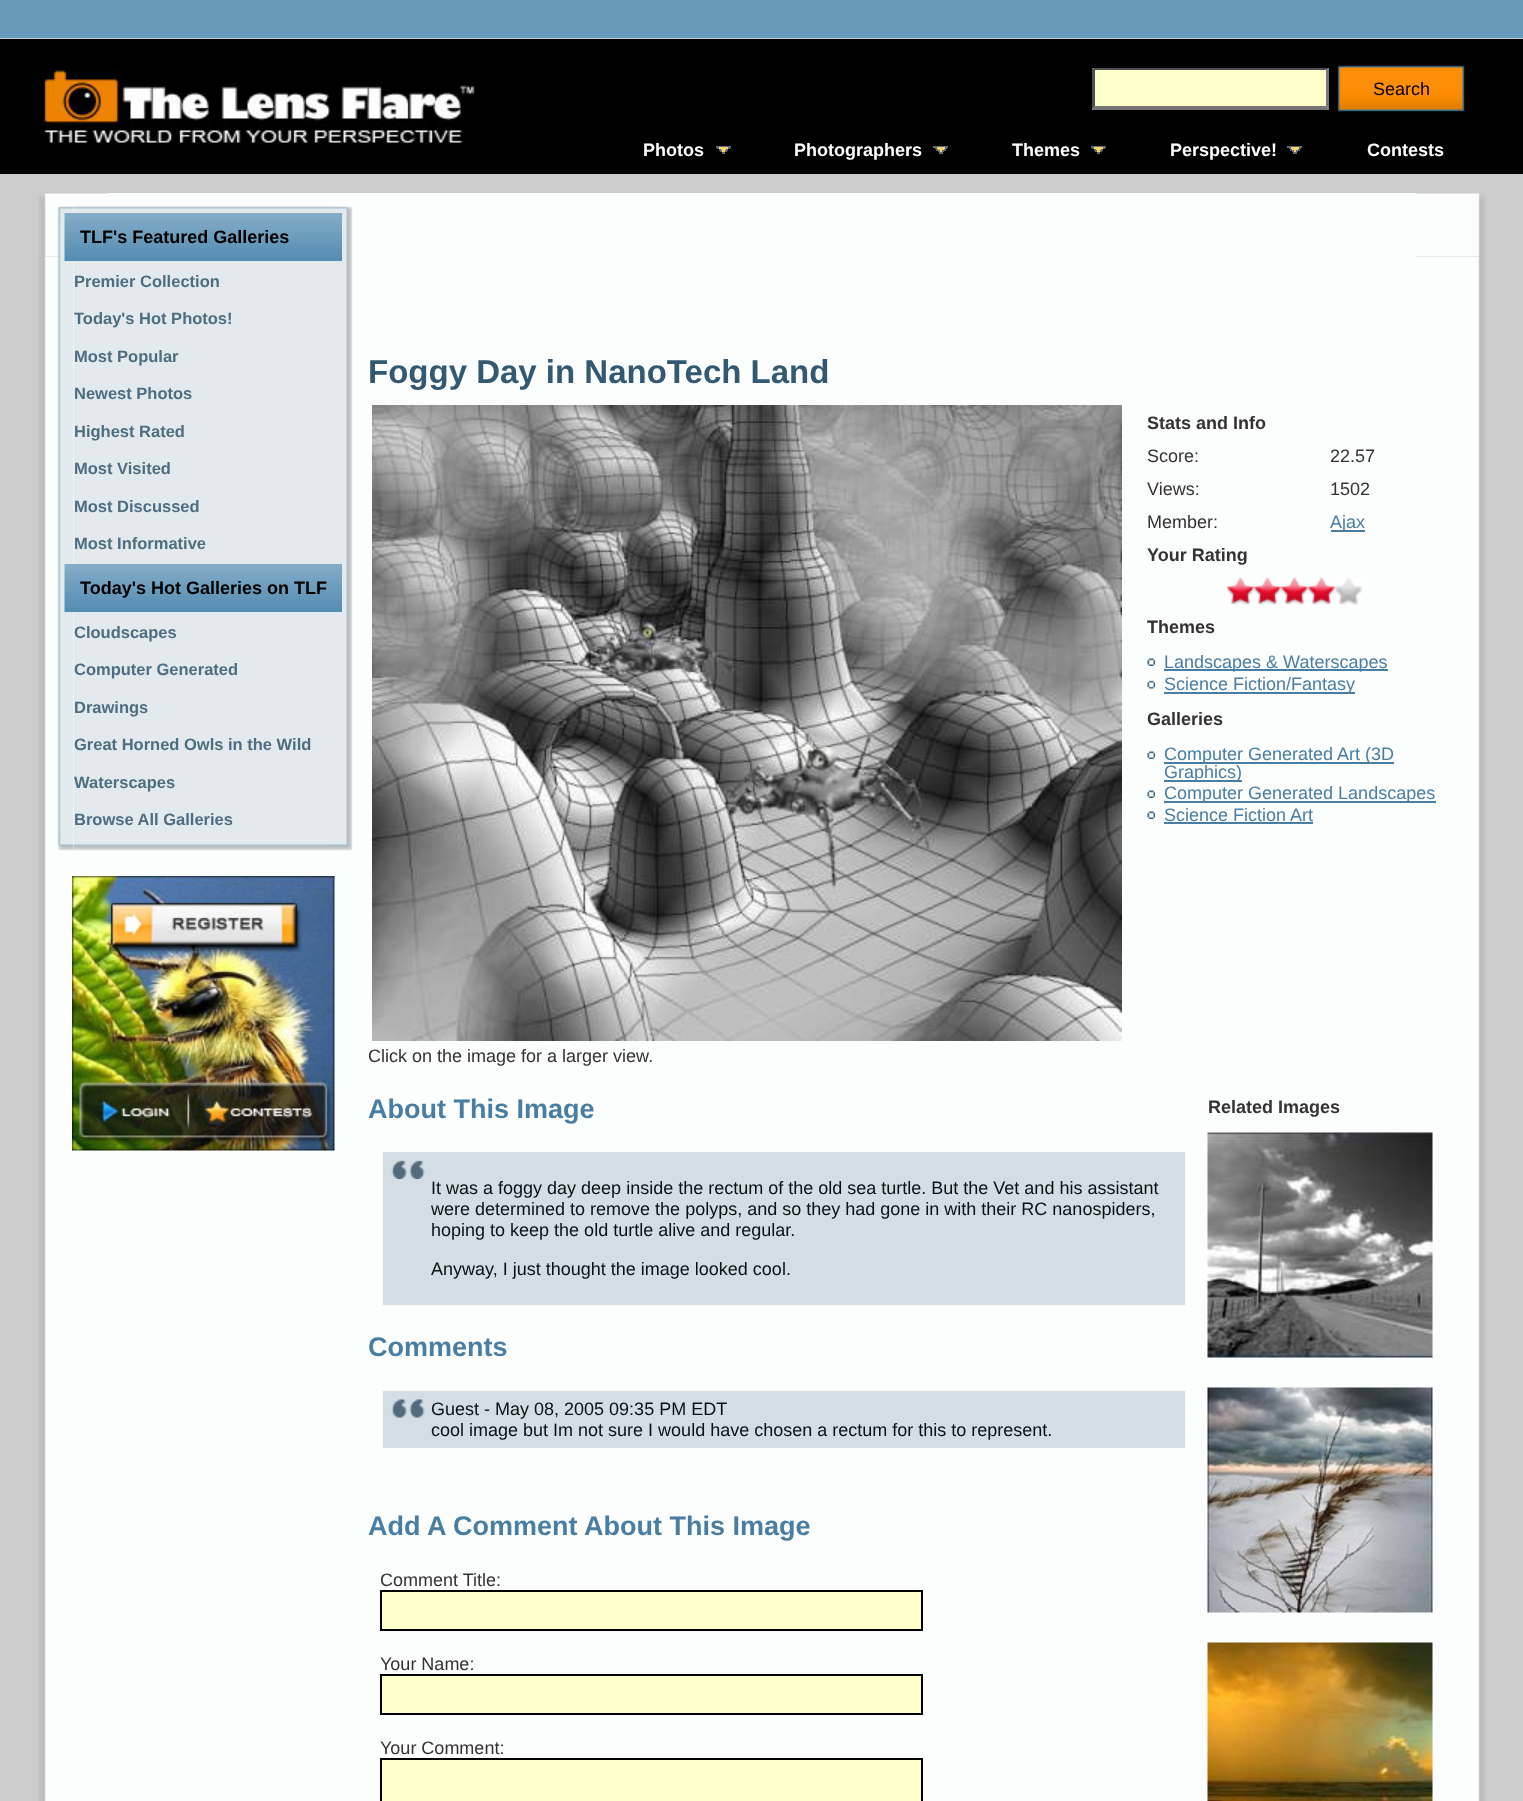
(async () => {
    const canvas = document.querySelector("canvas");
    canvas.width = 1523;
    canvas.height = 1801;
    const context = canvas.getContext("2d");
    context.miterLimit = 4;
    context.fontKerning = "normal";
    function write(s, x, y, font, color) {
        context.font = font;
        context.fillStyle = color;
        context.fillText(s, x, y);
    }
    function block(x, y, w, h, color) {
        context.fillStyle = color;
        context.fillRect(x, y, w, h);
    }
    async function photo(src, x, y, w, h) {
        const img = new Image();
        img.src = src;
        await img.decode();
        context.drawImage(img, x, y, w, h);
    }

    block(0, 0, 1523, 1801, "rgb(204, 204, 204)");
    block(0, 0, 1523, 38, "rgb(104, 154, 188)");
    block(0, 39, 1523, 135, "rgb(0, 0, 0)");
    await photo("media/1.png", 42, 69, 433, 75);
    block(1092, 68, 237, 42, "rgb(255, 255, 204)");
    context.fillStyle = "rgb(79, 79, 79)";
    context.beginPath();
    context.moveTo(1092, 68);
    context.lineTo(1329, 68);
    context.lineTo(1326, 70);
    context.lineTo(1095, 70);
    context.closePath();
    context.fill();
    context.fillStyle = "rgb(118, 118, 118)";
    context.beginPath();
    context.moveTo(1329, 68);
    context.lineTo(1329, 110);
    context.lineTo(1326, 106);
    context.lineTo(1326, 70);
    context.closePath();
    context.fill();
    context.beginPath();
    context.moveTo(1329, 110);
    context.lineTo(1092, 110);
    context.lineTo(1095, 106);
    context.lineTo(1326, 106);
    context.closePath();
    context.fill();
    context.fillStyle = "rgb(79, 79, 79)";
    context.beginPath();
    context.moveTo(1092, 110);
    context.lineTo(1092, 68);
    context.lineTo(1095, 70);
    context.lineTo(1095, 106);
    context.closePath();
    context.fill();
    await photo("media/2.png", 1337, 65, 121, 47);
    await photo("media/3.png", 1458, 65, 7, 47);
    write("Search", 1373, 95, "18px Liberation Sans", "rgb(0, 0, 0)");
    write("Photos", 643, 156, "bold 18px Liberation Sans", "rgb(255, 255, 255)");
    block(716, 146, 15, 2, "rgb(94, 108, 120)");
    block(719, 147, 9, 2, "rgb(247, 213, 106)");
    block(728, 148, 2, 1, "rgb(94, 108, 120)");
    block(717, 148, 2, 1, "rgb(94, 108, 120)");
    block(720, 149, 6, 1, "rgb(247, 213, 106)");
    block(726, 149, 2, 2, "rgb(94, 108, 120)");
    block(719, 149, 2, 2, "rgb(94, 108, 120)");
    block(722, 150, 3, 2, "rgb(247, 213, 106)");
    block(725, 150, 2, 2, "rgb(94, 108, 120)");
    block(720, 150, 2, 2, "rgb(94, 108, 120)");
    block(722, 152, 3, 2, "rgb(94, 108, 120)");
    write("Photographers", 794, 156, "bold 18px Liberation Sans", "rgb(255, 255, 255)");
    block(933, 146, 15, 2, "rgb(94, 108, 120)");
    block(936, 147, 9, 2, "rgb(247, 213, 106)");
    block(945, 148, 2, 1, "rgb(94, 108, 120)");
    block(935, 147, 2, 2, "rgb(94, 108, 120)");
    block(938, 149, 6, 1, "rgb(247, 213, 106)");
    block(944, 149, 2, 2, "rgb(94, 108, 120)");
    block(936, 149, 2, 2, "rgb(94, 108, 120)");
    block(939, 150, 3, 2, "rgb(247, 213, 106)");
    block(942, 150, 2, 2, "rgb(94, 108, 120)");
    block(938, 150, 2, 2, "rgb(94, 108, 120)");
    block(939, 152, 4, 2, "rgb(94, 108, 120)");
    write("Themes", 1012, 156, "bold 18px Liberation Sans", "rgb(255, 255, 255)");
    block(1091, 146, 15, 2, "rgb(94, 108, 120)");
    block(1094, 147, 9, 2, "rgb(247, 213, 106)");
    block(1103, 148, 2, 1, "rgb(94, 108, 120)");
    block(1092, 148, 2, 1, "rgb(94, 108, 120)");
    block(1095, 149, 6, 1, "rgb(247, 213, 106)");
    block(1101, 149, 2, 2, "rgb(94, 108, 120)");
    block(1094, 149, 2, 2, "rgb(94, 108, 120)");
    block(1097, 150, 3, 2, "rgb(247, 213, 106)");
    block(1100, 150, 2, 2, "rgb(94, 108, 120)");
    block(1095, 150, 2, 2, "rgb(94, 108, 120)");
    block(1097, 152, 3, 2, "rgb(94, 108, 120)");
    write("Perspective!", 1170, 156, "bold 18px Liberation Sans", "rgb(255, 255, 255)");
    block(1287, 146, 15, 2, "rgb(94, 108, 120)");
    block(1290, 147, 9, 2, "rgb(247, 213, 106)");
    block(1299, 148, 2, 1, "rgb(94, 108, 120)");
    block(1289, 147, 2, 2, "rgb(94, 108, 120)");
    block(1292, 149, 6, 1, "rgb(247, 213, 106)");
    block(1298, 149, 2, 2, "rgb(94, 108, 120)");
    block(1290, 149, 2, 2, "rgb(94, 108, 120)");
    block(1293, 150, 3, 2, "rgb(247, 213, 106)");
    block(1296, 150, 2, 2, "rgb(94, 108, 120)");
    block(1292, 150, 2, 2, "rgb(94, 108, 120)");
    block(1293, 152, 4, 2, "rgb(94, 108, 120)");
    write("Contests", 1367, 156, "bold 18px Liberation Sans", "rgb(255, 255, 255)");
    await photo("media/4.png", 38, 193, 70, 64);
    block(108, 193, 1308, 1608, "rgb(252, 253, 253)");
    await photo("media/5.png", 1416, 193, 70, 64);
    await photo("media/6.png", 57, 206, 17, 16);
    await photo("media/7.png", 73, 205, 260, 8);
    await photo("media/8.png", 333, 206, 20, 16);
    await photo("media/28.png", 38, 256, 70, 1545);
    await photo("media/9.png", 57, 222, 17, 609);
    await photo("media/11.png", 333, 222, 20, 609);
    await photo("media/10.png", 64, 213, 278, 48);
    write("TLF's Featured Galleries", 80, 243, "bold 18px Liberation Sans", "rgb(0, 0, 0)");
    block(74, 261, 259, 570, "rgb(226, 234, 238)");
    write("Premier Collection", 74, 287, "bold 16.5px Liberation Sans", "rgb(77, 110, 128)");
    write("Today's Hot Photos!", 74, 324, "bold 16.5px Liberation Sans", "rgb(77, 110, 128)");
    write("Most Popular", 74, 362, "bold 16.5px Liberation Sans", "rgb(77, 110, 128)");
    write("Newest Photos", 74, 399, "bold 16.5px Liberation Sans", "rgb(77, 110, 128)");
    write("Highest Rated", 74, 437, "bold 16.5px Liberation Sans", "rgb(77, 110, 128)");
    write("Most Visited", 74, 474, "bold 16.5px Liberation Sans", "rgb(77, 110, 128)");
    write("Most Discussed", 74, 512, "bold 16.5px Liberation Sans", "rgb(77, 110, 128)");
    write("Most Informative", 74, 549, "bold 16.5px Liberation Sans", "rgb(77, 110, 128)");
    await photo("media/10.png", 64, 564, 278, 48);
    write("Today's Hot Galleries on TLF", 80, 594, "bold 18px Liberation Sans", "rgb(0, 0, 0)");
    write("Cloudscapes", 74, 638, "bold 16.5px Liberation Sans", "rgb(77, 110, 128)");
    write("Computer Generated", 74, 675, "bold 16.5px Liberation Sans", "rgb(77, 110, 128)");
    write("Drawings", 74, 713, "bold 16.5px Liberation Sans", "rgb(77, 110, 128)");
    write("Great Horned Owls in the Wild", 74, 750, "bold 16.5px Liberation Sans", "rgb(77, 110, 128)");
    write("Waterscapes", 74, 788, "bold 16.5px Liberation Sans", "rgb(77, 110, 128)");
    write("Browse All Galleries", 74, 825, "bold 16.5px Liberation Sans", "rgb(77, 110, 128)");
    await photo("media/12.png", 57, 831, 17, 20);
    await photo("media/13.png", 73, 831, 260, 20);
    await photo("media/14.png", 333, 831, 20, 20);
    await photo("media/15.png", 72, 876, 263, 275);
    write("Foggy Day in NanoTech Land", 368, 383, "bold 33px Liberation Sans", "rgb(51, 88, 113)");
    await photo("media/16.png", 372, 405, 750, 636);
    write("Stats and Info", 1147, 429, "bold 18px Liberation Sans", "rgb(51, 51, 51)");
    write("Score:", 1147, 462, "18px Liberation Sans", "rgb(51, 51, 51)");
    write("22.57", 1330, 462, "18px Liberation Sans", "rgb(51, 51, 51)");
    write("Views:", 1147, 495, "18px Liberation Sans", "rgb(51, 51, 51)");
    write("1502", 1330, 495, "18px Liberation Sans", "rgb(51, 51, 51)");
    write("Member:", 1147, 528, "18px Liberation Sans", "rgb(51, 51, 51)");
    block(1331, 530, 34, 2, "rgb(73, 126, 162)");
    write("Ajax", 1330, 528, "18px Liberation Sans", "rgb(73, 126, 162)");
    write("Your Rating", 1147, 561, "bold 18px Liberation Sans", "rgb(51, 51, 51)");
    await photo("media/17.png", 1227, 577, 27, 28);
    await photo("media/18.png", 1254, 577, 27, 28);
    await photo("media/19.png", 1281, 577, 27, 28);
    await photo("media/19.png", 1308, 577, 27, 28);
    await photo("media/20.png", 1335, 577, 27, 28);
    write("Themes", 1147, 633, "bold 18px Liberation Sans", "rgb(51, 51, 51)");
    await photo("media/21.png", 1147, 658, 8, 8);
    block(1164, 669, 224, 2, "rgb(73, 126, 162)");
    write("Landscapes & Waterscapes", 1164, 668, "18px Liberation Sans", "rgb(73, 126, 162)");
    await photo("media/22.png", 1147, 680, 8, 9);
    block(1164, 692, 191, 2, "rgb(73, 126, 162)");
    write("Science Fiction/Fantasy", 1164, 690, "18px Liberation Sans", "rgb(73, 126, 162)");
    write("Galleries", 1147, 725, "bold 18px Liberation Sans", "rgb(51, 51, 51)");
    await photo("media/21.png", 1147, 751, 8, 8);
    block(1164, 762, 230, 2, "rgb(73, 126, 162)");
    write("Computer Generated Art (3D", 1164, 760, "18px Liberation Sans", "rgb(73, 126, 162)");
    block(1164, 780, 78, 2, "rgb(73, 126, 162)");
    write("Graphics)", 1164, 778, "18px Liberation Sans", "rgb(73, 126, 162)");
    await photo("media/21.png", 1147, 790, 8, 8);
    await photo("media/29.png", 1416, 256, 70, 1545);
    block(1164, 801, 272, 2, "rgb(73, 126, 162)");
    write("Computer Generated Landscapes", 1164, 799, "18px Liberation Sans", "rgb(73, 126, 162)");
    await photo("media/21.png", 1147, 811, 8, 8);
    write("Science Fiction Art", 1164, 821, "18px Liberation Sans", "rgb(73, 126, 162)");
    block(1164, 822, 149, 2, "rgb(73, 126, 162)");
    write("Click on the image for a larger view.", 368, 1062, "18px Liberation Sans", "rgb(51, 51, 51)");
    write("About This Image", 368, 1118, "bold 27px Liberation Sans", "rgb(73, 126, 162)");
    write("Related Images", 1208, 1113, "bold 18px Liberation Sans", "rgb(51, 51, 51)");
    await photo("media/23.png", 1207, 1132, 226, 226);
    await photo("media/24.png", 1207, 1387, 226, 226);
    await photo("media/25.png", 1207, 1642, 226, 159);
    block(383, 1152, 802, 153, "rgb(210, 222, 228)");
    await photo("media/26.png", 391, 1160, 34, 19);
    write("It was a foggy day deep inside the rectum of the old sea turtle. But the Vet and his assistant", 431, 1194, "18px Liberation Sans", "rgb(11, 16, 19)");
    write("were determined to remove the polyps, and so they had gone in with their RC nanospiders,", 431, 1215, "18px Liberation Sans", "rgb(11, 16, 19)");
    write("hoping to keep the old turtle alive and regular.", 431, 1236, "18px Liberation Sans", "rgb(11, 16, 19)");
    write("Anyway, I just thought the image looked cool.", 431, 1275, "18px Liberation Sans", "rgb(11, 16, 19)");
    write("Comments", 368, 1356, "bold 27px Liberation Sans", "rgb(73, 126, 162)");
    block(383, 1391, 802, 57, "rgb(210, 222, 228)");
    await photo("media/27.png", 391, 1399, 34, 19);
    write("Guest - May 08, 2005 09:35 PM EDT", 431, 1415, "18px Liberation Sans", "rgb(11, 16, 19)");
    write("cool image but Im not sure I would have chosen a rectum for this to represent.", 431, 1436, "18px Liberation Sans", "rgb(11, 16, 19)");
    write("Add A Comment About This Image", 368, 1535, "bold 27px Liberation Sans", "rgb(73, 126, 162)");
    write("Comment Title:", 380, 1586, "18px Liberation Sans", "rgb(51, 51, 51)");
    context.fillStyle = "rgb(255, 255, 204)";
    context.beginPath();
    context.rect(381, 1591, 541, 39);
    context.fill();
    context.strokeStyle = "rgb(0, 0, 0)";
    context.lineWidth = 2;
    context.stroke();
    write("Your Name:", 380, 1670, "18px Liberation Sans", "rgb(51, 51, 51)");
    context.fillStyle = "rgb(255, 255, 204)";
    context.beginPath();
    context.rect(381, 1675, 541, 39);
    context.fill();
    context.stroke();
    write("Your Comment:", 380, 1754, "18px Liberation Sans", "rgb(51, 51, 51)");
    context.fillStyle = "rgb(255, 255, 204)";
    context.beginPath();
    context.rect(381, 1759, 541, 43);
    context.fill();
    context.stroke();
})();
